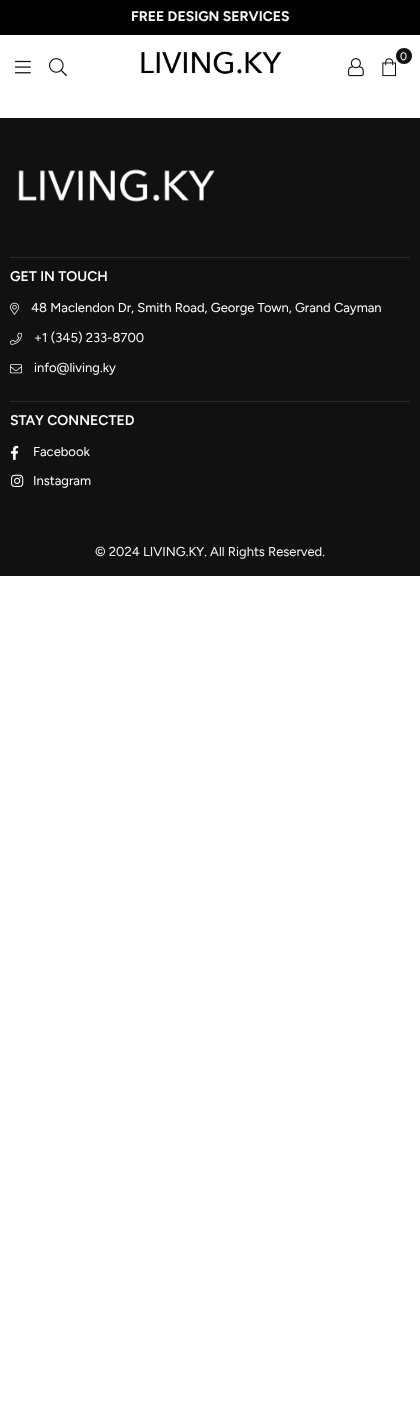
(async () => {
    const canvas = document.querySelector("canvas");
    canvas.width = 420;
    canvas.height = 1415;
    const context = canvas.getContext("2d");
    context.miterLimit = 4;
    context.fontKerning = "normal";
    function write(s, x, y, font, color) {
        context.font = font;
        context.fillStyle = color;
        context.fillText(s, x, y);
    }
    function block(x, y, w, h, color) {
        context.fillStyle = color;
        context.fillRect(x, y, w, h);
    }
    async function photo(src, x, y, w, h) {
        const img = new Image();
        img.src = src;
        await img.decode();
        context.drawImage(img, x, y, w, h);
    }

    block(0, 0, 420, 1415, "rgb(255, 255, 255)");
    block(0, 0, 420, 35, "rgb(0, 0, 0)");
    write("FREE DESIGN SERVICES", 131, 21, "bold 14px Figtree", "rgb(245, 245, 245)");
    await photo("media/1.png", 141, 51, 141, 23);
    context.fillStyle = "rgb(17, 17, 17)";
    context.beginPath();
    context.arc(404, 56, 8, 0, Math.PI * 2);
    context.fill();
    write("0", 400, 60, "11px Figtree", "rgb(255, 255, 255)");
    await photo("media/2.png", 382, 58, 14, 19);
    await photo("media/3.png", 348, 58, 16, 19);
    await photo("media/4.png", 15, 60, 16, 14);
    await photo("media/5.png", 49, 58, 18, 19);
    block(0, 118, 420, 458, "rgb(17, 17, 17)");
    await photo("media/6.png", 18, 169, 197, 33);
    block(10, 257, 400, 1, "rgb(41, 41, 41)");
    write("GET IN TOUCH", 10, 281, "600 14px Figtree", "rgb(255, 255, 255)");
    await photo("media/7.png", 10, 302, 9, 13);
    write("48 Maclendon Dr, Smith Road, George Town, Grand Cayman", 31, 312, "13px Figtree", "rgb(255, 255, 255)");
    await photo("media/8.png", 10, 332, 12, 13);
    write("+1 (345) 233-8700", 34, 342, "13px Figtree", "rgb(255, 255, 255)");
    await photo("media/9.png", 10, 364, 12, 10);
    write("info@living.ky", 34, 372, "13px Figtree", "rgb(255, 255, 255)");
    block(10, 401, 400, 1, "rgb(41, 41, 41)");
    write("STAY CONNECTED", 10, 425, "600 14px Figtree", "rgb(255, 255, 255)");
    await photo("media/10.png", 11, 445, 8, 15);
    write("Facebook", 33, 456, "13px Figtree", "rgb(255, 255, 255)");
    await photo("media/11.png", 11, 474, 13, 13);
    write("Instagram", 33, 485, "13px Figtree", "rgb(255, 255, 255)");
    write("© 2024 LIVING.KY. All Rights Reserved.", 95, 556, "13px Figtree", "rgb(245, 245, 245)");
})();
